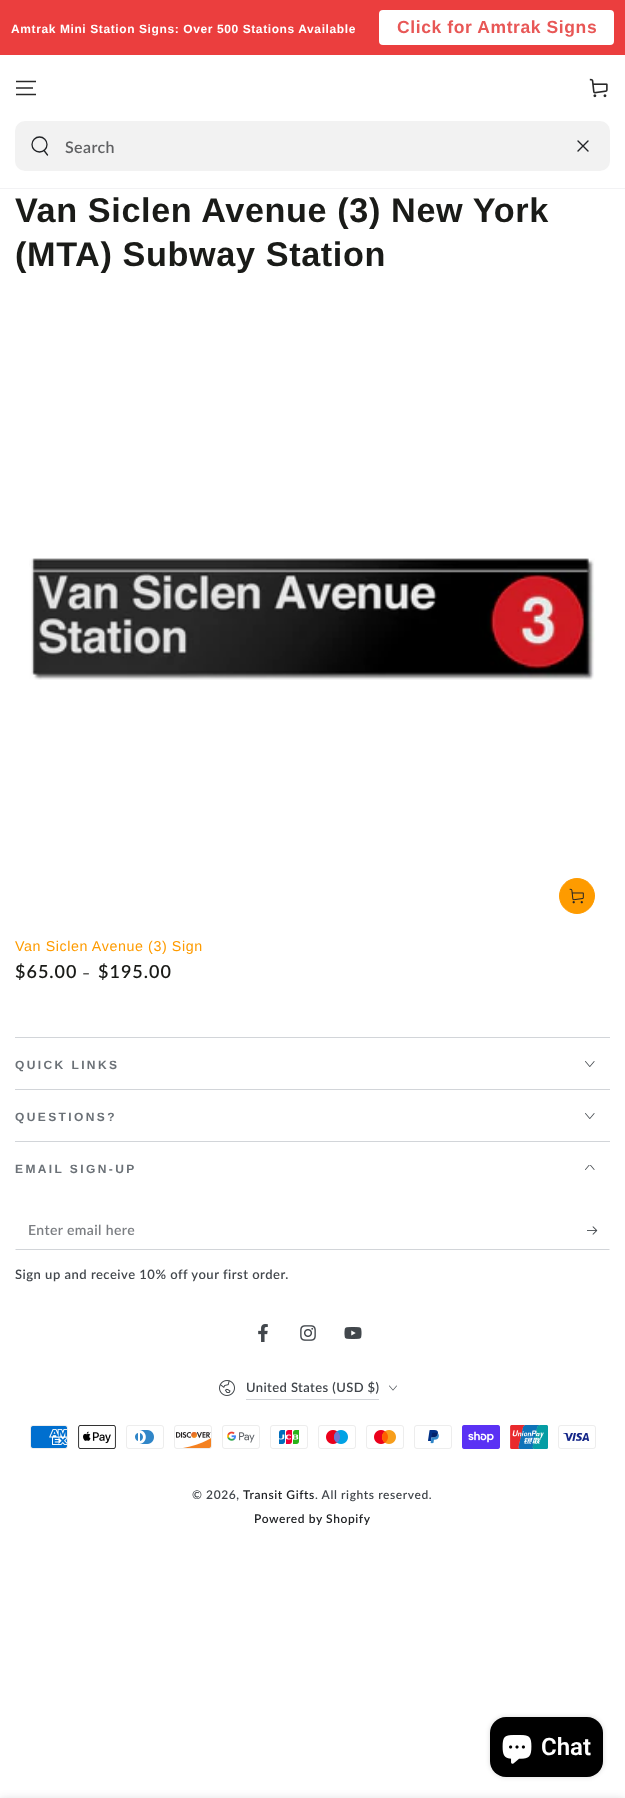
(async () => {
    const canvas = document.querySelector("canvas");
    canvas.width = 625;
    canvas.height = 1798;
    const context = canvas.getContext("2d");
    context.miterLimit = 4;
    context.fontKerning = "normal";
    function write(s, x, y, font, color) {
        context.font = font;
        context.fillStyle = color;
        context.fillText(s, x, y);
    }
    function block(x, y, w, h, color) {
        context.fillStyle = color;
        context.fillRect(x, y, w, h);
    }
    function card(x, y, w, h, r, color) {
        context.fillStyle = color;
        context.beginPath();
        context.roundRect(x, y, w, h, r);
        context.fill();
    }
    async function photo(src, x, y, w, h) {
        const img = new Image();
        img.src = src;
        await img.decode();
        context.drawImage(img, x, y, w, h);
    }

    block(0, 0, 625, 1798, "rgb(255, 255, 255)");
    block(0, 188, 625, 1, "rgb(242, 242, 244)");
    block(0, 0, 625, 55, "rgb(235, 62, 62)");
    context.letterSpacing = "0.6px";
    write("Amtrak Mini Station Signs: Over 500 Stations Available", 11, 33, "bold 12px Liberation Sans", "rgb(255, 255, 255)");
    card(379, 10, 235, 35, 4, "rgb(255, 255, 255)");
    write("Click for Amtrak Signs", 397, 33, "bold 17.5px Liberation Sans", "rgb(232, 87, 86)");
    context.beginPath();
    context.moveTo(16, 94.5);
    context.lineTo(36, 94.5);
    context.moveTo(16, 88);
    context.lineTo(33, 88);
    context.moveTo(16, 81.5);
    context.lineTo(36, 81.5);
    context.strokeStyle = "rgb(40, 40, 40)";
    context.lineWidth = 1.6;
    context.stroke();
    await photo("media/1.png", 589, 78, 19, 20);
    card(15, 121, 595, 50, 10, "rgb(242, 242, 242)");
    context.beginPath();
    context.arc(39.5, 144.5, 7.5, 0, Math.PI * 2);
    context.strokeStyle = "rgb(33, 35, 38)";
    context.lineWidth = 1.3;
    context.stroke();
    context.beginPath();
    context.moveTo(44, 150.5);
    context.lineTo(47.5, 155);
    context.lineCap = "round";
    context.stroke();
    context.letterSpacing = "0.4px";
    write("Search", 65, 153, "600 16px Lato", "rgb(96, 97, 99)");
    context.beginPath();
    context.moveTo(578, 141);
    context.lineTo(588, 151);
    context.moveTo(588, 141);
    context.lineTo(578, 151);
    context.lineWidth = 1.4;
    context.stroke();
    context.letterSpacing = "0.6px";
    write("Van Siclen Avenue (3) New York", 15, 222, "bold 34.25px Liberation Sans", "rgb(26, 27, 24)");
    write("(MTA) Subway Station", 15, 266, "bold 34.25px Liberation Sans", "rgb(26, 27, 24)");
    await photo("media/2.png", 29, 558, 566, 122);
    context.fillStyle = "rgb(254, 155, 0)";
    context.beginPath();
    context.arc(577, 896, 17.5, 0, Math.PI * 2);
    context.fill();
    context.strokeStyle = "rgb(254, 155, 0)";
    context.lineWidth = 1;
    context.stroke();
    await photo("media/3.png", 569, 888, 15, 16);
    write("Van Siclen Avenue (3) Sign", 15, 951, "14.25px Liberation Sans", "rgb(254, 155, 0)");
    context.letterSpacing = "1px";
    write("$65.00", 15, 978, "600 18px Lato", "rgb(26, 27, 24)");
    write("–", 82, 978, "600 14px Lato", "rgb(26, 27, 24)");
    write("$195.00", 98, 978, "600 18px Lato", "rgb(26, 27, 24)");
    block(15, 1037, 595, 1, "rgb(210, 213, 217)");
    block(15, 1089, 595, 1, "rgb(210, 213, 217)");
    context.letterSpacing = "2.4px";
    write("QUICK LINKS", 15, 1069, "bold 12px Liberation Sans", "rgb(107, 113, 119)");
    await photo("media/4.png", 585, 1061, 10, 6);
    block(15, 1141, 595, 1, "rgb(210, 213, 217)");
    write("QUESTIONS?", 15, 1121, "bold 12px Liberation Sans", "rgb(107, 113, 119)");
    await photo("media/4.png", 585, 1113, 10, 6);
    write("EMAIL SIGN-UP", 15, 1173, "bold 12px Liberation Sans", "rgb(107, 113, 119)");
    await photo("media/5.png", 585, 1165, 10, 5);
    context.fillStyle = "rgb(210, 213, 217)";
    context.beginPath();
    context.moveTo(610, 1250);
    context.lineTo(15, 1250);
    context.lineTo(16, 1249);
    context.lineTo(609, 1249);
    context.closePath();
    context.fill();
    context.letterSpacing = "0.4px";
    write("Enter email here", 28, 1235, "600 14px Lato", "rgb(123, 126, 130)");
    await photo("media/6.png", 587, 1226, 11, 9);
    context.letterSpacing = "0.5px";
    write("Sign up and receive 10% off your first order.", 15, 1279, "600 13px Lato", "rgb(66, 71, 76)");
    await photo("media/7.png", 258, 1324, 10, 18);
    await photo("media/8.png", 300, 1325, 16, 16);
    await photo("media/9.png", 344, 1327, 18, 12);
    await photo("media/10.png", 219, 1380, 16, 16);
    block(246, 1399, 133, 1, "rgb(210, 213, 217)");
    context.letterSpacing = "0.4px";
    write("United States (USD $)", 246, 1392, "600 13px Lato", "rgb(66, 71, 76)");
    await photo("media/11.png", 389, 1385, 8, 6);
    await photo("media/12.png", 30, 1425, 38, 24);
    await photo("media/13.png", 78, 1425, 38, 24);
    await photo("media/14.png", 126, 1425, 38, 24);
    await photo("media/15.png", 174, 1425, 38, 24);
    await photo("media/16.png", 222, 1425, 38, 24);
    await photo("media/17.png", 270, 1425, 38, 24);
    await photo("media/18.png", 318, 1425, 38, 24);
    await photo("media/19.png", 366, 1425, 38, 24);
    await photo("media/20.png", 414, 1425, 38, 24);
    await photo("media/21.png", 462, 1425, 38, 24);
    await photo("media/22.png", 510, 1425, 38, 24);
    await photo("media/23.png", 558, 1425, 38, 24);
    context.letterSpacing = "0.6px";
    write("© 2026,", 192, 1499, "600 12px Lato", "rgb(66, 71, 76)");
    write("Transit Gifts", 243, 1499, "600 12px Lato", "rgb(33, 35, 38)");
    write(". All rights reserved.", 315, 1499, "600 12px Lato", "rgb(66, 71, 76)");
    write("Powered by Shopify", 254, 1523, "600 12px Lato", "rgb(33, 35, 38)");
    context.fillStyle = "rgba(0, 0, 0, 0.15)";
    context.filter = "blur(2.5px)";
    context.beginPath();
    context.roundRect(490, 1717, 113, 60, 16);
    context.fill();
    context.filter = "none";
    card(490, 1717, 113, 60, 16, "rgb(0, 0, 0)");
    await photo("media/24.png", 502, 1735, 30, 29);
    context.letterSpacing = "0px";
    write("Chat", 541, 1755, "600 24px Roboto", "rgb(255, 255, 255)");
    context.fillStyle = "rgba(33, 35, 38, 0.15)";
    context.filter = "blur(4px)";
    context.beginPath();
    context.rect(0, 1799, 625, 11);
    context.fill();
    context.filter = "none";
})();
